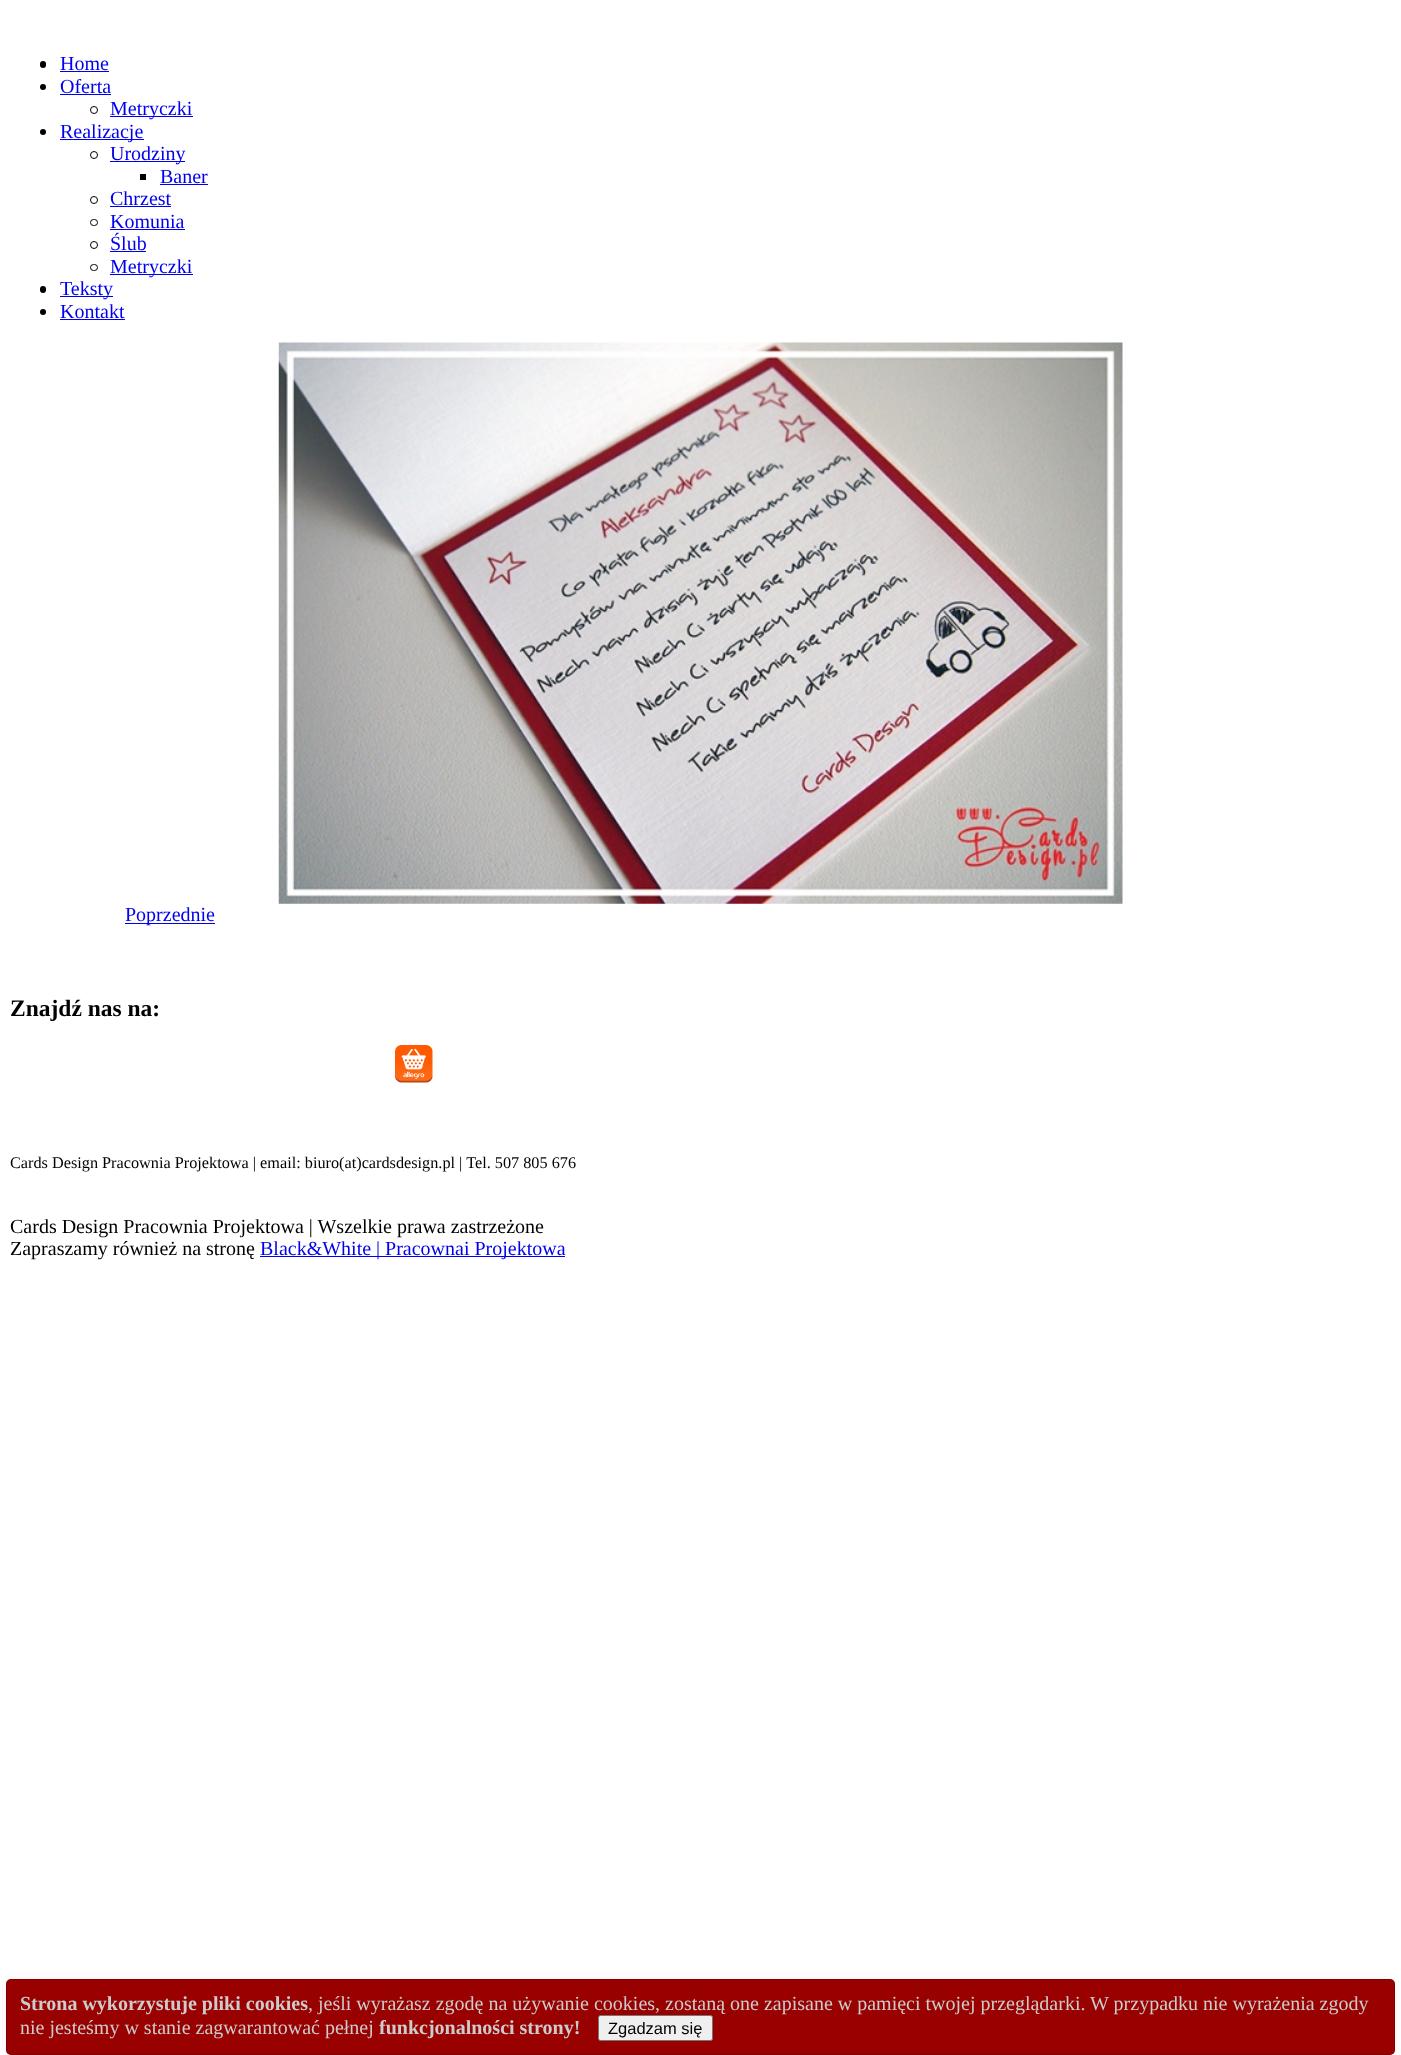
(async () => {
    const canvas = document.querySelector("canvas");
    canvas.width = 1401;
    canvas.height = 2055;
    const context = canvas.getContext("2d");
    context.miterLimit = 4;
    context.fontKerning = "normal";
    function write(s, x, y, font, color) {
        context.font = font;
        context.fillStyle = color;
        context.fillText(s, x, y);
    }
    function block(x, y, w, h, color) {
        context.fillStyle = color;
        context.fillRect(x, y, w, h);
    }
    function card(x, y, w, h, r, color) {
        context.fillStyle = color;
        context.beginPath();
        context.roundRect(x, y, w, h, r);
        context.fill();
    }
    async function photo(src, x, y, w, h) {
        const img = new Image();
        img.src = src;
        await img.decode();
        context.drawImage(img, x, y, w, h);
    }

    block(0, 0, 1401, 2055, "rgb(255, 255, 255)");
    card(40, 61, 6, 7, 3, "rgb(0, 0, 0)");
    write("Home", 60, 70, "20px Liberation Serif", "rgb(0, 0, 238)");
    block(60, 71, 49, 1, "rgb(0, 0, 238)");
    context.fillStyle = "rgb(0, 0, 0)";
    context.beginPath();
    context.arc(43, 87, 3, 0, Math.PI * 2);
    context.fill();
    write("Oferta", 60, 93, "20px Liberation Serif", "rgb(0, 0, 238)");
    block(60, 94, 51, 1, "rgb(0, 0, 238)");
    context.beginPath();
    context.arc(94, 110, 3.5, 0, Math.PI * 2);
    context.strokeStyle = "rgb(0, 0, 0)";
    context.stroke();
    block(110, 116, 83, 1, "rgb(0, 0, 238)");
    write("Metryczki", 110, 115, "20px Liberation Serif", "rgb(0, 0, 238)");
    context.fillStyle = "rgb(0, 0, 0)";
    context.beginPath();
    context.arc(43, 132, 3, 0, Math.PI * 2);
    context.fill();
    block(60, 139, 84, 1, "rgb(0, 0, 238)");
    write("Realizacje", 60, 138, "20px Liberation Serif", "rgb(0, 0, 238)");
    context.beginPath();
    context.arc(94, 155, 3.5, 0, Math.PI * 2);
    context.stroke();
    block(110, 161, 75, 1, "rgb(0, 0, 238)");
    write("Urodziny", 110, 160, "20px Liberation Serif", "rgb(0, 0, 238)");
    block(140, 174, 6, 6, "rgb(0, 0, 0)");
    write("Baner", 160, 183, "20px Liberation Serif", "rgb(0, 0, 238)");
    block(160, 184, 48, 1, "rgb(0, 0, 238)");
    context.beginPath();
    context.arc(94, 200, 3.5, 0, Math.PI * 2);
    context.stroke();
    write("Chrzest", 110, 205, "20px Liberation Serif", "rgb(0, 0, 238)");
    block(110, 206, 61, 1, "rgb(0, 0, 238)");
    context.beginPath();
    context.roundRect(90.5, 219.5, 7, 6, 3);
    context.stroke();
    write("Komunia", 110, 228, "20px Liberation Serif", "rgb(0, 0, 238)");
    block(110, 229, 75, 1, "rgb(0, 0, 238)");
    context.beginPath();
    context.arc(94, 245, 3.5, 0, Math.PI * 2);
    context.stroke();
    write("Ślub", 110, 250, "20px Liberation Serif", "rgb(0, 0, 238)");
    block(110, 251, 36, 1, "rgb(0, 0, 238)");
    context.beginPath();
    context.roundRect(90.5, 264.5, 7, 6, 3);
    context.stroke();
    block(110, 274, 83, 1, "rgb(0, 0, 238)");
    write("Metryczki", 110, 273, "20px Liberation Serif", "rgb(0, 0, 238)");
    card(40, 286, 6, 7, 3, "rgb(0, 0, 0)");
    block(60, 296, 53, 1, "rgb(0, 0, 238)");
    write("Teksty", 60, 295, "20px Liberation Serif", "rgb(0, 0, 238)");
    context.fillStyle = "rgb(0, 0, 0)";
    context.beginPath();
    context.arc(43, 312, 3, 0, Math.PI * 2);
    context.fill();
    write("Kontakt", 60, 318, "20px Liberation Serif", "rgb(0, 0, 238)");
    block(60, 319, 65, 1, "rgb(0, 0, 238)");
    await photo("media/1.png", 278, 342, 845, 562);
    block(125, 923, 90, 1, "rgb(0, 0, 238)");
    write("Poprzednie", 125, 921, "20px Liberation Serif", "rgb(0, 0, 238)");
    write("Znajdź nas na:", 10, 1016, "bold 23.5px Liberation Serif", "rgb(0, 0, 0)");
    await photo("media/2.png", 395, 1045, 38, 38);
    write("Cards Design Pracownia Projektowa | email: biuro(at)cardsdesign.pl | Tel. 507 805 676", 10, 1168, "16.25px Liberation Serif", "rgb(0, 0, 0)");
    write("Cards Design Pracownia Projektowa | Wszelkie prawa zastrzeżone", 10, 1233, "20px Liberation Serif", "rgb(0, 0, 0)");
    write("Zapraszamy również na stronę", 10, 1255, "20px Liberation Serif", "rgb(0, 0, 0)");
    block(260, 1256, 305, 1, "rgb(0, 0, 238)");
    write("Black&White | Pracownai Projektowa", 260, 1255, "20px Liberation Serif", "rgb(0, 0, 238)");
    context.fillStyle = "rgba(0, 0, 0, 0.05)";
    context.filter = "blur(4px)";
    context.beginPath();
    context.roundRect(6, 1979, 1389, 76, 5);
    context.fill();
    context.filter = "none";
    card(6, 1979, 1389, 76, 5, "rgb(153, 0, 0)");
    context.beginPath();
    context.roundRect(6.5, 1979.5, 1388, 75, 4.5);
    context.strokeStyle = "rgba(0, 0, 0, 0.15)";
    context.stroke();
    write("Strona wykorzystuje pliki cookies", 20, 2010, "bold 20px Liberation Serif", "rgb(204, 204, 204)");
    write(", jeśli wyrażasz zgodę na używanie cookies, zostaną one zapisane w pamięci twojej przeglądarki. W przypadku nie wyrażenia zgody", 308, 2010, "20px Liberation Serif", "rgb(204, 204, 204)");
    write("nie jesteśmy w stanie zagwarantować pełnej", 20, 2034, "20px Liberation Serif", "rgb(204, 204, 204)");
    write("funkcjonalności strony!", 379, 2034, "bold 20px Liberation Serif", "rgb(204, 204, 204)");
    context.fillStyle = "rgb(239, 239, 239)";
    context.beginPath();
    context.roundRect(598.5, 2015.5, 114, 25, 2);
    context.fill();
    context.strokeStyle = "rgb(118, 118, 118)";
    context.stroke();
    write("Zgadzam się", 608, 2034, "16.5px Liberation Sans", "rgb(0, 0, 0)");
})();
